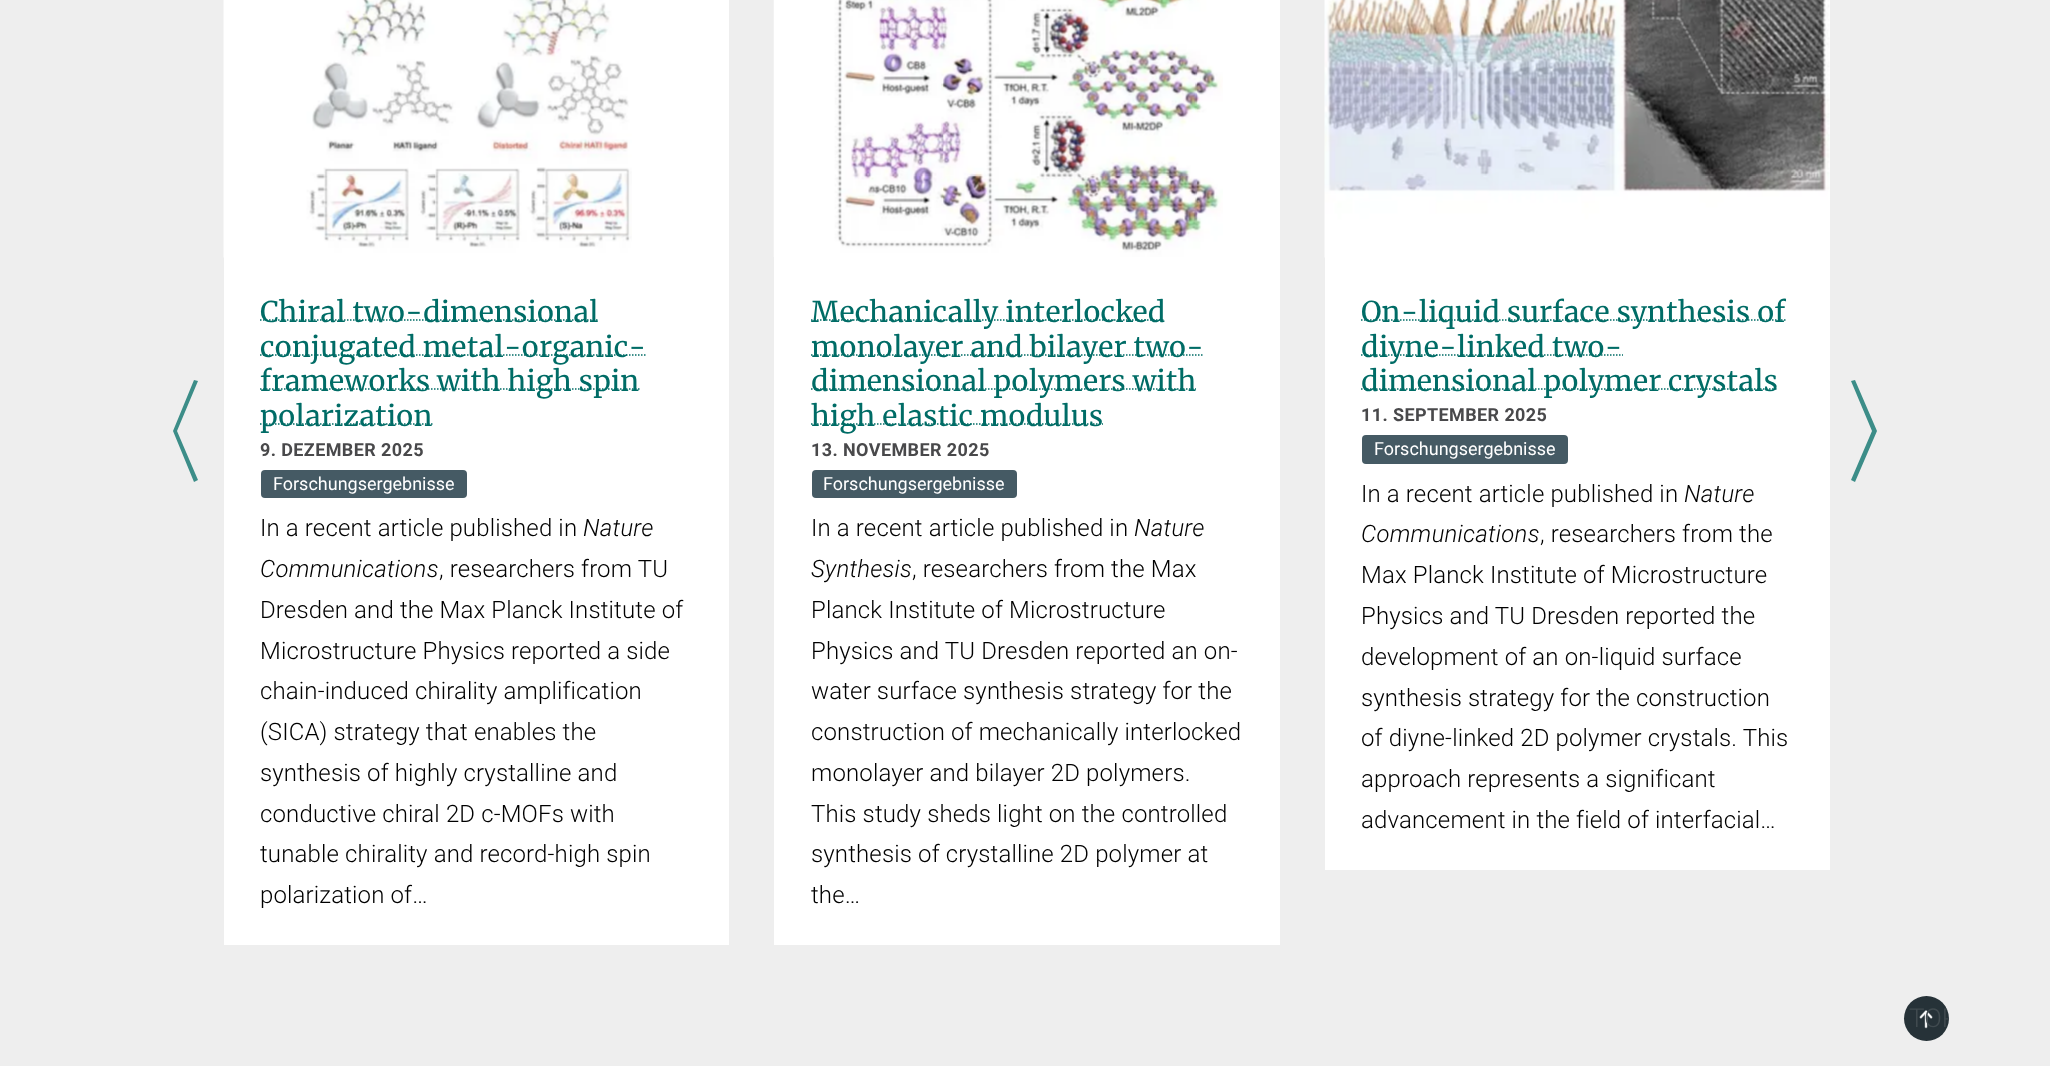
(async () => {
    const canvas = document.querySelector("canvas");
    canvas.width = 2050;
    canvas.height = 1066;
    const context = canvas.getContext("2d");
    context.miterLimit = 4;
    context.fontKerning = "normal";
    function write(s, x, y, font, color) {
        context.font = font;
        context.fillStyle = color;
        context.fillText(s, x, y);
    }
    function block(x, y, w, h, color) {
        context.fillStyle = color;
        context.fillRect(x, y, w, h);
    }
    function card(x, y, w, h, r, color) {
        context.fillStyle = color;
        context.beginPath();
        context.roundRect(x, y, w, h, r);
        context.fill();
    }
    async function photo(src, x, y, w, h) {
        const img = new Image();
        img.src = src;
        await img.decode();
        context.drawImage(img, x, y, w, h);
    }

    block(0, 0, 2050, 1066, "rgb(238, 238, 238)");
    context.fillStyle = "rgb(60, 141, 136)";
    context.beginPath();
    context.moveTo(173, 431);
    context.lineTo(194, 482);
    context.lineTo(198, 480);
    context.lineTo(177, 431);
    context.lineTo(198, 381);
    context.lineTo(194, 380);
    context.closePath();
    context.fill();
    block(224, 0, 505, 945, "rgb(255, 255, 255)");
    await photo("media/1.png", 223, 0, 409, 258);
    context.beginPath();
    context.moveTo(260, 320);
    context.lineTo(599, 320);
    context.strokeStyle = "rgb(0, 108, 102)";
    context.lineWidth = 1.5;
    context.setLineDash([1.5, 1.5]);
    context.stroke();
    write("Chiral two-dimensional", 260, 322, "28.5px Merriweather", "rgb(0, 108, 102)");
    context.beginPath();
    context.moveTo(260, 355);
    context.lineTo(646.5, 355);
    context.stroke();
    write("conjugated metal-organic-", 260, 357, "28.5px Merriweather", "rgb(0, 108, 102)");
    context.beginPath();
    context.moveTo(260, 389);
    context.lineTo(639.5, 389);
    context.stroke();
    write("frameworks with high spin", 260, 391, "28.5px Merriweather", "rgb(0, 108, 102)");
    context.beginPath();
    context.moveTo(260, 424);
    context.lineTo(432.5, 424);
    context.stroke();
    write("polarization", 260, 426, "28.5px Merriweather", "rgb(0, 108, 102)");
    context.letterSpacing = "0.4px";
    write("9. DEZEMBER 2025", 260, 456, "bold 18px Roboto", "rgb(73, 73, 75)");
    card(261, 470, 206, 28, 4, "rgb(69, 90, 100)");
    context.letterSpacing = "0px";
    write("Forschungsergebnisse", 273, 490, "18px Roboto", "rgb(255, 255, 255)");
    context.letterSpacing = "0.15px";
    write("In a recent article published in", 260, 536, "300 24px Roboto", "rgb(0, 0, 0)");
    write("Nature", 583, 536, "italic 300 24px Roboto", "rgb(0, 0, 0)");
    write("Communications", 260, 577, "italic 300 24px Roboto", "rgb(0, 0, 0)");
    write(", researchers from TU", 439, 577, "300 24px Roboto", "rgb(0, 0, 0)");
    write("Dresden and the Max Planck Institute of", 260, 618, "300 24px Roboto", "rgb(0, 0, 0)");
    write("Microstructure Physics reported a side", 260, 659, "300 24px Roboto", "rgb(0, 0, 0)");
    write("chain-induced chirality amplification", 260, 699, "300 24px Roboto", "rgb(0, 0, 0)");
    write("(SICA) strategy that enables the", 260, 740, "300 24px Roboto", "rgb(0, 0, 0)");
    write("synthesis of highly crystalline and", 260, 781, "300 24px Roboto", "rgb(0, 0, 0)");
    write("conductive chiral 2D c-MOFs with", 260, 822, "300 24px Roboto", "rgb(0, 0, 0)");
    write("tunable chirality and record-high spin", 260, 862, "300 24px Roboto", "rgb(0, 0, 0)");
    write("polarization of…", 260, 903, "300 24px Roboto", "rgb(0, 0, 0)");
    block(774, 0, 506, 945, "rgb(255, 255, 255)");
    await photo("media/2.png", 773, 0, 450, 257);
    context.beginPath();
    context.moveTo(811, 320);
    context.lineTo(1165, 320);
    context.stroke();
    context.letterSpacing = "0px";
    write("Mechanically interlocked", 811, 322, "28.5px Merriweather", "rgb(0, 108, 102)");
    context.beginPath();
    context.moveTo(811, 355);
    context.lineTo(1204, 355);
    context.stroke();
    write("monolayer and bilayer two-", 811, 357, "28.5px Merriweather", "rgb(0, 108, 102)");
    context.beginPath();
    context.moveTo(811, 389);
    context.lineTo(1196, 389);
    context.stroke();
    write("dimensional polymers with", 811, 391, "28.5px Merriweather", "rgb(0, 108, 102)");
    context.beginPath();
    context.moveTo(811, 424);
    context.lineTo(1103, 424);
    context.stroke();
    write("high elastic modulus", 811, 426, "28.5px Merriweather", "rgb(0, 108, 102)");
    context.letterSpacing = "0.4px";
    write("13. NOVEMBER 2025", 811, 456, "bold 18px Roboto", "rgb(73, 73, 75)");
    card(812, 470, 205, 28, 4, "rgb(69, 90, 100)");
    context.letterSpacing = "0px";
    write("Forschungsergebnisse", 823, 490, "18px Roboto", "rgb(255, 255, 255)");
    context.letterSpacing = "0.15px";
    write("In a recent article published in", 811, 536, "300 24px Roboto", "rgb(0, 0, 0)");
    write("Nature", 1134, 536, "italic 300 24px Roboto", "rgb(0, 0, 0)");
    write("Synthesis", 811, 577, "italic 300 24px Roboto", "rgb(0, 0, 0)");
    write(", researchers from the Max", 912, 577, "300 24px Roboto", "rgb(0, 0, 0)");
    write("Planck Institute of Microstructure", 811, 618, "300 24px Roboto", "rgb(0, 0, 0)");
    write("Physics and TU Dresden reported an on-", 811, 659, "300 24px Roboto", "rgb(0, 0, 0)");
    write("water surface synthesis strategy for the", 811, 699, "300 24px Roboto", "rgb(0, 0, 0)");
    write("construction of mechanically interlocked", 811, 740, "300 24px Roboto", "rgb(0, 0, 0)");
    write("monolayer and bilayer 2D polymers.", 811, 781, "300 24px Roboto", "rgb(0, 0, 0)");
    write("This study sheds light on the controlled", 811, 822, "300 24px Roboto", "rgb(0, 0, 0)");
    write("synthesis of crystalline 2D polymer at", 811, 862, "300 24px Roboto", "rgb(0, 0, 0)");
    write("the…", 811, 903, "300 24px Roboto", "rgb(0, 0, 0)");
    block(1325, 0, 505, 870, "rgb(255, 255, 255)");
    await photo("media/3.png", 1324, 0, 506, 258);
    context.beginPath();
    context.moveTo(1361, 320);
    context.lineTo(1786, 320);
    context.stroke();
    context.letterSpacing = "0px";
    write("On-liquid surface synthesis of", 1361, 322, "28.5px Merriweather", "rgb(0, 108, 102)");
    context.beginPath();
    context.moveTo(1361, 355);
    context.lineTo(1623, 355);
    context.stroke();
    write("diyne-linked two-", 1361, 357, "28.5px Merriweather", "rgb(0, 108, 102)");
    context.beginPath();
    context.moveTo(1361, 389);
    context.lineTo(1778, 389);
    context.stroke();
    write("dimensional polymer crystals", 1361, 391, "28.5px Merriweather", "rgb(0, 108, 102)");
    context.letterSpacing = "0.4px";
    write("11. SEPTEMBER 2025", 1361, 421, "bold 18px Roboto", "rgb(73, 73, 75)");
    card(1362, 435, 206, 29, 4, "rgb(69, 90, 100)");
    context.letterSpacing = "0px";
    write("Forschungsergebnisse", 1374, 455, "18px Roboto", "rgb(255, 255, 255)");
    context.letterSpacing = "0.15px";
    write("In a recent article published in", 1361, 502, "300 24px Roboto", "rgb(0, 0, 0)");
    write("Nature", 1684, 502, "italic 300 24px Roboto", "rgb(0, 0, 0)");
    write("Communications", 1361, 542, "italic 300 24px Roboto", "rgb(0, 0, 0)");
    write(", researchers from the", 1540, 542, "300 24px Roboto", "rgb(0, 0, 0)");
    write("Max Planck Institute of Microstructure", 1361, 583, "300 24px Roboto", "rgb(0, 0, 0)");
    write("Physics and TU Dresden reported the", 1361, 624, "300 24px Roboto", "rgb(0, 0, 0)");
    write("development of an on-liquid surface", 1361, 665, "300 24px Roboto", "rgb(0, 0, 0)");
    write("synthesis strategy for the construction", 1361, 706, "300 24px Roboto", "rgb(0, 0, 0)");
    write("of diyne-linked 2D polymer crystals. This", 1361, 746, "300 24px Roboto", "rgb(0, 0, 0)");
    write("approach represents a significant", 1361, 787, "300 24px Roboto", "rgb(0, 0, 0)");
    write("advancement in the field of interfacial…", 1361, 828, "300 24px Roboto", "rgb(0, 0, 0)");
    context.fillStyle = "rgb(60, 141, 136)";
    context.beginPath();
    context.moveTo(1851, 480);
    context.lineTo(1855, 482);
    context.lineTo(1877, 431);
    context.lineTo(1855, 380);
    context.lineTo(1851, 381);
    context.lineTo(1872, 431);
    context.closePath();
    context.fill();
    context.fillStyle = "rgb(38, 50, 56)";
    context.beginPath();
    context.arc(1926.5, 1018.5, 22.5, 0, Math.PI * 2);
    context.fill();
    await photo("media/4.png", 1919, 1010, 14, 19);
    context.save();
    context.beginPath();
    context.roundRect(1904, 996, 45, 45, 22.5);
    context.clip();
    context.letterSpacing = "0px";
    write("TOP", 1909, 1027, "300 26px Roboto", "rgb(64, 74, 79)");
    context.restore();
})();
